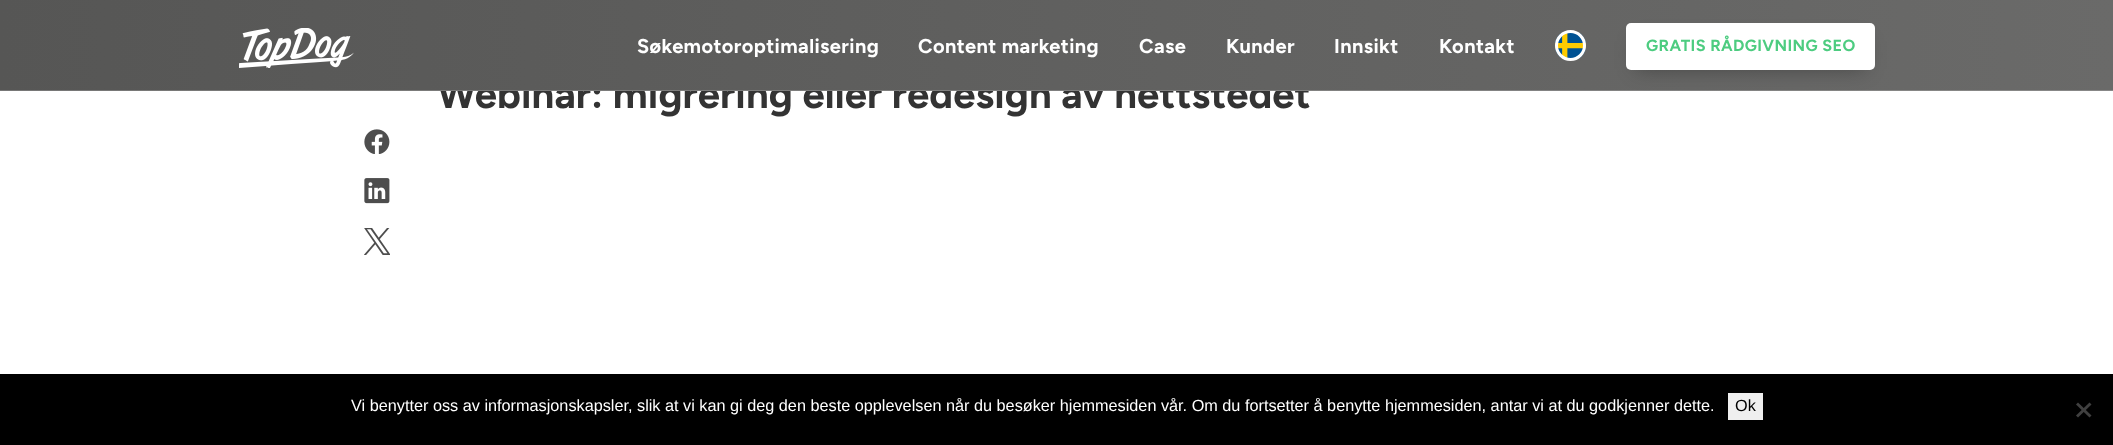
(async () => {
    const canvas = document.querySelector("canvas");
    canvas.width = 2113;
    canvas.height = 445;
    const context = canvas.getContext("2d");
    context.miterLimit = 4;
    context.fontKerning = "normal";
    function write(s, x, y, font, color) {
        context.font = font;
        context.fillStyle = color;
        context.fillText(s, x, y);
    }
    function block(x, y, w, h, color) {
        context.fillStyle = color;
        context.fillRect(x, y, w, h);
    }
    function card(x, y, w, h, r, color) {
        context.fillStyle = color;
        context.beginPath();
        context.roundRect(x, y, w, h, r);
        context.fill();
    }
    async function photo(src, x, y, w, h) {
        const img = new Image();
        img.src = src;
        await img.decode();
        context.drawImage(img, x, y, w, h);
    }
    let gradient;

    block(0, 0, 2113, 445, "rgb(255, 255, 255)");
    context.letterSpacing = "0.1px";
    write("Webinar: migrering eller redesign av nettstedet", 437, 108, "bold 40px Figtree", "rgb(51, 51, 51)");
    gradient = context.createLinearGradient(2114, 46, 0, 46);
    gradient.addColorStop(0, "rgb(106, 106, 105)");
    gradient.addColorStop(1, "rgb(86, 86, 85)");
    context.fillStyle = gradient;
    context.fillRect(0, 0, 2113, 91);
    block(0, 90, 2113, 1, "rgba(255, 255, 255, 0.2)");
    await photo("media/1.png", 239, 28, 115, 40);
    context.letterSpacing = "0.4px";
    write("Søkemotoroptimalisering", 637, 53, "bold 20px Figtree", "rgb(255, 255, 255)");
    write("Content marketing", 918, 53, "bold 20px Figtree", "rgb(255, 255, 255)");
    write("Case", 1139, 53, "bold 20px Figtree", "rgb(255, 255, 255)");
    write("Kunder", 1226, 53, "bold 20px Figtree", "rgb(255, 255, 255)");
    write("Innsikt", 1334, 53, "bold 20px Figtree", "rgb(255, 255, 255)");
    write("Kontakt", 1439, 53, "bold 20px Figtree", "rgb(255, 255, 255)");
    await photo("media/2.png", 1555, 33, 31, 26);
    context.beginPath();
    context.arc(1570.5, 45.5, 14, 0, Math.PI * 2);
    context.strokeStyle = "rgb(255, 255, 255)";
    context.lineWidth = 3;
    context.stroke();
    context.fillStyle = "rgba(0, 0, 0, 0.32)";
    context.filter = "blur(10px)";
    context.beginPath();
    context.rect(1636, 41, 229, 28);
    context.fill();
    context.filter = "none";
    card(1626, 23, 249, 47, 5, "rgb(255, 255, 255)");
    write("GRATIS RÅDGIVNING SEO", 1646, 51, "bold 16.25px Figtree", "rgb(77, 204, 128)");
    await photo("media/3.png", 364, 129, 26, 25);
    await photo("media/4.png", 364, 178, 26, 26);
    await photo("media/5.png", 364, 228, 26, 27);
    block(0, 374, 2113, 71, "rgb(0, 0, 0)");
    context.letterSpacing = "0px";
    write("Vi benytter oss av informasjonskapsler, slik at vi kan gi deg den beste opplevelsen når du besøker hjemmesiden vår. Om du fortsetter å benytte hjemmesiden, antar vi at du godkjenner dette.", 351, 411, "16.25px Liberation Sans", "rgb(255, 255, 255)");
    block(1728, 393, 35, 27, "rgb(239, 239, 239)");
    write("Ok", 1735, 411, "16.25px Liberation Sans", "rgb(0, 0, 0)");
    context.fillStyle = "rgb(64, 64, 64)";
    context.beginPath();
    context.moveTo(2089.5, 402.5);
    context.lineTo(2091.5, 404.5);
    context.lineTo(2078, 417.5);
    context.lineTo(2076, 415.5);
    context.closePath();
    context.fill();
    context.beginPath();
    context.moveTo(2076, 404.5);
    context.lineTo(2078, 402.5);
    context.lineTo(2091.5, 415.5);
    context.lineTo(2089.5, 417.5);
    context.closePath();
    context.fill();
})();
